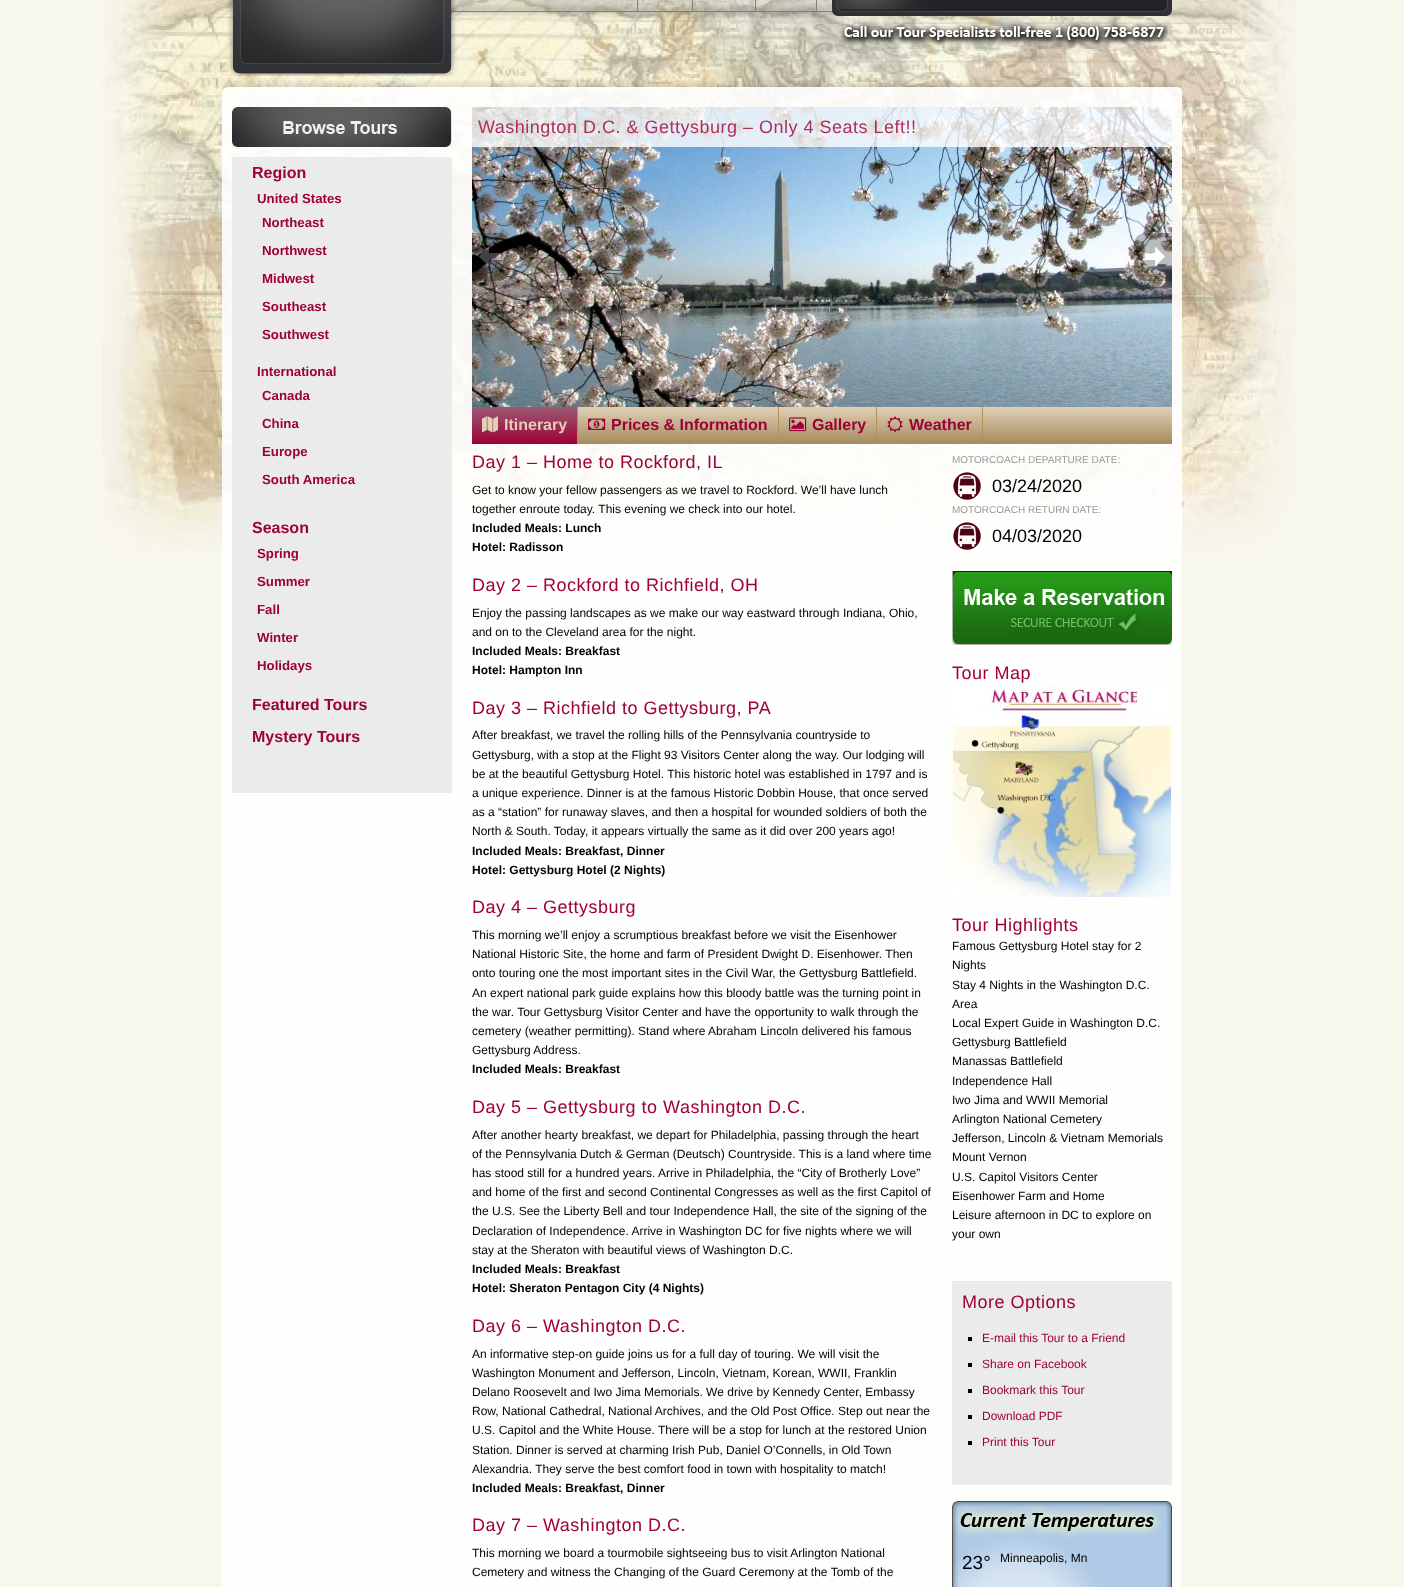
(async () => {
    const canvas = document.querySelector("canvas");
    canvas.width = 1404;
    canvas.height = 1587;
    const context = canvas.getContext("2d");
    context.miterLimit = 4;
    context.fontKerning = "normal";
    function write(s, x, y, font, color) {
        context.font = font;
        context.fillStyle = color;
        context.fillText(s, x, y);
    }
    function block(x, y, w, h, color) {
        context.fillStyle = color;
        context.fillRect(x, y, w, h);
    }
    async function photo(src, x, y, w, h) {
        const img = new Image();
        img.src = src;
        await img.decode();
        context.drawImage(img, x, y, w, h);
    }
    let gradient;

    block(0, 0, 1404, 1587, "rgb(247, 247, 236)");
    await photo("media/1.png", 102, 0, 1194, 550);
    await photo("media/2.png", 227, 0, 945, 76);
    block(637, 0, 1, 11, "rgb(127, 127, 127)");
    block(692, 0, 1, 11, "rgb(127, 127, 127)");
    block(755, 0, 1, 11, "rgb(127, 127, 127)");
    block(816, 0, 1, 11, "rgb(127, 127, 127)");
    await photo("media/3.png", 839, 22, 332, 26);
    await photo("media/4.png", 222, 80, 960, 17);
    block(222, 97, 960, 1490, "rgba(255, 255, 255, 0.89)");
    await photo("media/5.png", 232, 107, 220, 40);
    block(232, 157, 220, 636, "rgb(236, 235, 235)");
    write("Region", 252, 178, "bold 16px Liberation Sans", "rgb(158, 0, 57)");
    write("United States", 257, 203, "bold 13.25px Liberation Sans", "rgb(158, 0, 57)");
    write("Northeast", 262, 227, "bold 13.25px Liberation Sans", "rgb(158, 0, 57)");
    write("Northwest", 262, 255, "bold 13.25px Liberation Sans", "rgb(158, 0, 57)");
    write("Midwest", 262, 283, "bold 13.25px Liberation Sans", "rgb(158, 0, 57)");
    write("Southeast", 262, 311, "bold 13.25px Liberation Sans", "rgb(158, 0, 57)");
    write("Southwest", 262, 339, "bold 13.25px Liberation Sans", "rgb(158, 0, 57)");
    write("International", 257, 376, "bold 13.25px Liberation Sans", "rgb(158, 0, 57)");
    write("Canada", 262, 400, "bold 13.25px Liberation Sans", "rgb(158, 0, 57)");
    write("China", 262, 428, "bold 13.25px Liberation Sans", "rgb(158, 0, 57)");
    write("Europe", 262, 456, "bold 13.25px Liberation Sans", "rgb(158, 0, 57)");
    write("South America", 262, 484, "bold 13.25px Liberation Sans", "rgb(158, 0, 57)");
    write("Season", 252, 533, "bold 16px Liberation Sans", "rgb(158, 0, 57)");
    write("Spring", 257, 558, "bold 13.25px Liberation Sans", "rgb(158, 0, 57)");
    write("Summer", 257, 586, "bold 13.25px Liberation Sans", "rgb(158, 0, 57)");
    write("Fall", 257, 614, "bold 13.25px Liberation Sans", "rgb(158, 0, 57)");
    write("Winter", 257, 642, "bold 13.25px Liberation Sans", "rgb(158, 0, 57)");
    write("Holidays", 257, 670, "bold 13.25px Liberation Sans", "rgb(158, 0, 57)");
    write("Featured Tours", 252, 710, "bold 16px Liberation Sans", "rgb(158, 0, 57)");
    write("Mystery Tours", 252, 742, "bold 16px Liberation Sans", "rgb(158, 0, 57)");
    await photo("media/6.png", 472, 107, 700, 300);
    block(472, 107, 700, 40, "rgba(255, 255, 255, 0.8)");
    context.letterSpacing = "0.5px";
    write("Washington D.C. & Gettysburg – Only 4 Seats Left!!", 478, 133, "18px Liberation Sans", "rgb(172, 47, 93)");
    await photo("media/7.png", 472, 233, 38, 48);
    await photo("media/8.png", 1134, 233, 38, 48);
    gradient = context.createLinearGradient(822, 407, 822, 444);
    gradient.addColorStop(0, "rgb(225, 208, 182)");
    gradient.addColorStop(1, "rgb(164, 139, 93)");
    context.fillStyle = gradient;
    context.fillRect(578, 407, 594, 37);
    gradient = context.createLinearGradient(525, 407, 525, 444);
    gradient.addColorStop(0, "rgb(155, 90, 113)");
    gradient.addColorStop(1, "rgb(158, 0, 57)");
    context.fillStyle = gradient;
    context.fillRect(472, 407, 105, 37);
    block(577, 407, 1, 37, "rgb(179, 145, 87)");
    await photo("media/9.png", 482, 416, 16, 17);
    context.letterSpacing = "0px";
    write("Itinerary", 504, 430, "bold 16px Liberation Sans", "rgb(225, 208, 182)");
    block(778, 407, 1, 37, "rgb(179, 145, 87)");
    await photo("media/10.png", 588, 418, 18, 12);
    write("Prices & Information", 611, 430, "bold 16px Liberation Sans", "rgb(158, 0, 57)");
    block(876, 407, 1, 37, "rgb(179, 145, 87)");
    await photo("media/11.png", 789, 417, 18, 15);
    write("Gallery", 812, 430, "bold 16px Liberation Sans", "rgb(158, 0, 57)");
    block(982, 407, 1, 37, "rgb(179, 145, 87)");
    await photo("media/12.png", 887, 416, 16, 17);
    write("Weather", 909, 430, "bold 16px Liberation Sans", "rgb(158, 0, 57)");
    context.letterSpacing = "0.5px";
    write("Day 1 – Home to Rockford, IL", 472, 468, "18px Liberation Sans", "rgb(158, 0, 57)");
    context.letterSpacing = "0px";
    write("Get to know your fellow passengers as we travel to Rockford. We’ll have lunch", 472, 494, "12px Liberation Sans", "rgb(0, 0, 0)");
    write("together enroute today. This evening we check into our hotel.", 472, 513, "12px Liberation Sans", "rgb(0, 0, 0)");
    write("Included Meals: Lunch", 472, 532, "bold 12px Liberation Sans", "rgb(0, 0, 0)");
    write("Hotel: Radisson", 472, 551, "bold 12px Liberation Sans", "rgb(0, 0, 0)");
    context.letterSpacing = "0.5px";
    write("Day 2 – Rockford to Richfield, OH", 472, 591, "18px Liberation Sans", "rgb(158, 0, 57)");
    context.letterSpacing = "0px";
    write("Enjoy the passing landscapes as we make our way eastward through Indiana, Ohio,", 472, 617, "12px Liberation Sans", "rgb(0, 0, 0)");
    write("and on to the Cleveland area for the night.", 472, 636, "12px Liberation Sans", "rgb(0, 0, 0)");
    write("Included Meals: Breakfast", 472, 655, "bold 12px Liberation Sans", "rgb(0, 0, 0)");
    write("Hotel: Hampton Inn", 472, 674, "bold 12px Liberation Sans", "rgb(0, 0, 0)");
    context.letterSpacing = "0.5px";
    write("Day 3 – Richfield to Gettysburg, PA", 472, 714, "18px Liberation Sans", "rgb(158, 0, 57)");
    context.letterSpacing = "0px";
    write("After breakfast, we travel the rolling hills of the Pennsylvania countryside to", 472, 739, "12px Liberation Sans", "rgb(0, 0, 0)");
    write("Gettysburg, with a stop at the Flight 93 Visitors Center along the way. Our lodging will", 472, 759, "12px Liberation Sans", "rgb(0, 0, 0)");
    write("be at the beautiful Gettysburg Hotel. This historic hotel was established in 1797 and is", 472, 778, "12px Liberation Sans", "rgb(0, 0, 0)");
    write("a unique experience. Dinner is at the famous Historic Dobbin House, that once served", 472, 797, "12px Liberation Sans", "rgb(0, 0, 0)");
    write("as a “station” for runaway slaves, and then a hospital for wounded soldiers of both the", 472, 816, "12px Liberation Sans", "rgb(0, 0, 0)");
    write("North & South. Today, it appears virtually the same as it did over 200 years ago!", 472, 835, "12px Liberation Sans", "rgb(0, 0, 0)");
    write("Included Meals: Breakfast, Dinner", 472, 855, "bold 12px Liberation Sans", "rgb(0, 0, 0)");
    write("Hotel: Gettysburg Hotel (2 Nights)", 472, 874, "bold 12px Liberation Sans", "rgb(0, 0, 0)");
    context.letterSpacing = "0.5px";
    write("Day 4 – Gettysburg", 472, 913, "18px Liberation Sans", "rgb(158, 0, 57)");
    context.letterSpacing = "0px";
    write("This morning we’ll enjoy a scrumptious breakfast before we visit the Eisenhower", 472, 939, "12px Liberation Sans", "rgb(0, 0, 0)");
    write("National Historic Site, the home and farm of President Dwight D. Eisenhower. Then", 472, 958, "12px Liberation Sans", "rgb(0, 0, 0)");
    write("onto touring one the most important sites in the Civil War, the Gettysburg Battlefield.", 472, 977, "12px Liberation Sans", "rgb(0, 0, 0)");
    write("An expert national park guide explains how this bloody battle was the turning point in", 472, 997, "12px Liberation Sans", "rgb(0, 0, 0)");
    write("the war. Tour Gettysburg Visitor Center and have the opportunity to walk through the", 472, 1016, "12px Liberation Sans", "rgb(0, 0, 0)");
    write("cemetery (weather permitting). Stand where Abraham Lincoln delivered his famous", 472, 1035, "12px Liberation Sans", "rgb(0, 0, 0)");
    write("Gettysburg Address.", 472, 1054, "12px Liberation Sans", "rgb(0, 0, 0)");
    write("Included Meals: Breakfast", 472, 1073, "bold 12px Liberation Sans", "rgb(0, 0, 0)");
    context.letterSpacing = "0.5px";
    write("Day 5 – Gettysburg to Washington D.C.", 472, 1113, "18px Liberation Sans", "rgb(158, 0, 57)");
    context.letterSpacing = "0px";
    write("After another hearty breakfast, we depart for Philadelphia, passing through the heart", 472, 1139, "12px Liberation Sans", "rgb(0, 0, 0)");
    write("of the Pennsylvania Dutch & German (Deutsch) Countryside. This is a land where time", 472, 1158, "12px Liberation Sans", "rgb(0, 0, 0)");
    write("has stood still for a hundred years. Arrive in Philadelphia, the “City of Brotherly Love”", 472, 1177, "12px Liberation Sans", "rgb(0, 0, 0)");
    write("and home of the first and second Continental Congresses as well as the first Capitol of", 472, 1196, "12px Liberation Sans", "rgb(0, 0, 0)");
    write("the U.S. See the Liberty Bell and tour Independence Hall, the site of the signing of the", 472, 1215, "12px Liberation Sans", "rgb(0, 0, 0)");
    write("Declaration of Independence. Arrive in Washington DC for five nights where we will", 472, 1235, "12px Liberation Sans", "rgb(0, 0, 0)");
    write("stay at the Sheraton with beautiful views of Washington D.C.", 472, 1254, "12px Liberation Sans", "rgb(0, 0, 0)");
    write("Included Meals: Breakfast", 472, 1273, "bold 12px Liberation Sans", "rgb(0, 0, 0)");
    write("Hotel: Sheraton Pentagon City (4 Nights)", 472, 1292, "bold 12px Liberation Sans", "rgb(0, 0, 0)");
    context.letterSpacing = "0.5px";
    write("Day 6 – Washington D.C.", 472, 1332, "18px Liberation Sans", "rgb(158, 0, 57)");
    context.letterSpacing = "0px";
    write("An informative step-on guide joins us for a full day of touring. We will visit the", 472, 1358, "12px Liberation Sans", "rgb(0, 0, 0)");
    write("Washington Monument and Jefferson, Lincoln, Vietnam, Korean, WWII, Franklin", 472, 1377, "12px Liberation Sans", "rgb(0, 0, 0)");
    write("Delano Roosevelt and Iwo Jima Memorials. We drive by Kennedy Center, Embassy", 472, 1396, "12px Liberation Sans", "rgb(0, 0, 0)");
    write("Row, National Cathedral, National Archives, and the Old Post Office. Step out near the", 472, 1415, "12px Liberation Sans", "rgb(0, 0, 0)");
    write("U.S. Capitol and the White House. There will be a stop for lunch at the restored Union", 472, 1434, "12px Liberation Sans", "rgb(0, 0, 0)");
    write("Station. Dinner is served at charming Irish Pub, Daniel O’Connells, in Old Town", 472, 1454, "12px Liberation Sans", "rgb(0, 0, 0)");
    write("Alexandria. They serve the best comfort food in town with hospitality to match!", 472, 1473, "12px Liberation Sans", "rgb(0, 0, 0)");
    write("Included Meals: Breakfast, Dinner", 472, 1492, "bold 12px Liberation Sans", "rgb(0, 0, 0)");
    context.letterSpacing = "0.5px";
    write("Day 7 – Washington D.C.", 472, 1531, "18px Liberation Sans", "rgb(158, 0, 57)");
    context.letterSpacing = "0px";
    write("This morning we board a tourmobile sightseeing bus to visit Arlington National", 472, 1557, "12px Liberation Sans", "rgb(0, 0, 0)");
    write("Cemetery and witness the Changing of the Guard Ceremony at the Tomb of the", 472, 1576, "12px Liberation Sans", "rgb(0, 0, 0)");
    write("MOTORCOACH DEPARTURE DATE:", 952, 463, "10px Liberation Sans", "rgb(153, 153, 153)");
    await photo("media/13.png", 953, 472, 28, 28);
    write("03/24/2020", 992, 492, "18px Liberation Sans", "rgb(0, 0, 0)");
    write("MOTORCOACH RETURN DATE:", 952, 513, "10px Liberation Sans", "rgb(153, 153, 153)");
    await photo("media/14.png", 953, 522, 28, 28);
    write("04/03/2020", 992, 542, "18px Liberation Sans", "rgb(0, 0, 0)");
    await photo("media/15.png", 952, 571, 220, 74);
    context.letterSpacing = "0.5px";
    write("Tour Map", 952, 679, "18px Liberation Sans", "rgb(158, 0, 57)");
    await photo("media/16.png", 952, 685, 219, 212);
    write("Tour Highlights", 952, 931, "18px Liberation Sans", "rgb(158, 0, 57)");
    context.letterSpacing = "0px";
    write("Famous Gettysburg Hotel stay for 2", 952, 950, "12px Liberation Sans", "rgb(0, 0, 0)");
    write("Nights", 952, 969, "12px Liberation Sans", "rgb(0, 0, 0)");
    write("Stay 4 Nights in the Washington D.C.", 952, 989, "12px Liberation Sans", "rgb(0, 0, 0)");
    write("Area", 952, 1008, "12px Liberation Sans", "rgb(0, 0, 0)");
    write("Local Expert Guide in Washington D.C.", 952, 1027, "12px Liberation Sans", "rgb(0, 0, 0)");
    write("Gettysburg Battlefield", 952, 1046, "12px Liberation Sans", "rgb(0, 0, 0)");
    write("Manassas Battlefield", 952, 1065, "12px Liberation Sans", "rgb(0, 0, 0)");
    write("Independence Hall", 952, 1085, "12px Liberation Sans", "rgb(0, 0, 0)");
    write("Iwo Jima and WWII Memorial", 952, 1104, "12px Liberation Sans", "rgb(0, 0, 0)");
    write("Arlington National Cemetery", 952, 1123, "12px Liberation Sans", "rgb(0, 0, 0)");
    write("Jefferson, Lincoln & Vietnam Memorials", 952, 1142, "12px Liberation Sans", "rgb(0, 0, 0)");
    write("Mount Vernon", 952, 1161, "12px Liberation Sans", "rgb(0, 0, 0)");
    write("U.S. Capitol Visitors Center", 952, 1181, "12px Liberation Sans", "rgb(0, 0, 0)");
    write("Eisenhower Farm and Home", 952, 1200, "12px Liberation Sans", "rgb(0, 0, 0)");
    write("Leisure afternoon in DC to explore on", 952, 1219, "12px Liberation Sans", "rgb(0, 0, 0)");
    write("your own", 952, 1238, "12px Liberation Sans", "rgb(0, 0, 0)");
    block(952, 1281, 220, 204, "rgb(236, 235, 235)");
    context.letterSpacing = "0.5px";
    write("More Options", 962, 1308, "18px Liberation Sans", "rgb(158, 0, 57)");
    block(968, 1337, 4, 4, "rgb(0, 0, 0)");
    context.letterSpacing = "0px";
    write("E-mail this Tour to a Friend", 982, 1342, "12px Liberation Sans", "rgb(158, 0, 57)");
    block(968, 1363, 4, 4, "rgb(0, 0, 0)");
    write("Share on Facebook", 982, 1368, "12px Liberation Sans", "rgb(158, 0, 57)");
    block(968, 1389, 4, 4, "rgb(0, 0, 0)");
    write("Bookmark this Tour", 982, 1394, "12px Liberation Sans", "rgb(158, 0, 57)");
    block(968, 1415, 4, 4, "rgb(0, 0, 0)");
    write("Download PDF", 982, 1420, "12px Liberation Sans", "rgb(158, 0, 57)");
    block(968, 1441, 4, 4, "rgb(0, 0, 0)");
    write("Print this Tour", 982, 1446, "12px Liberation Sans", "rgb(158, 0, 57)");
    await photo("media/17.png", 952, 1501, 220, 86);
    await photo("media/18.png", 952, 1504, 209, 34);
    write("23°", 962, 1569, "19px Liberation Sans", "rgb(0, 0, 0)");
    write("Minneapolis, Mn", 1000, 1562, "12px Liberation Sans", "rgb(0, 0, 0)");
})();
